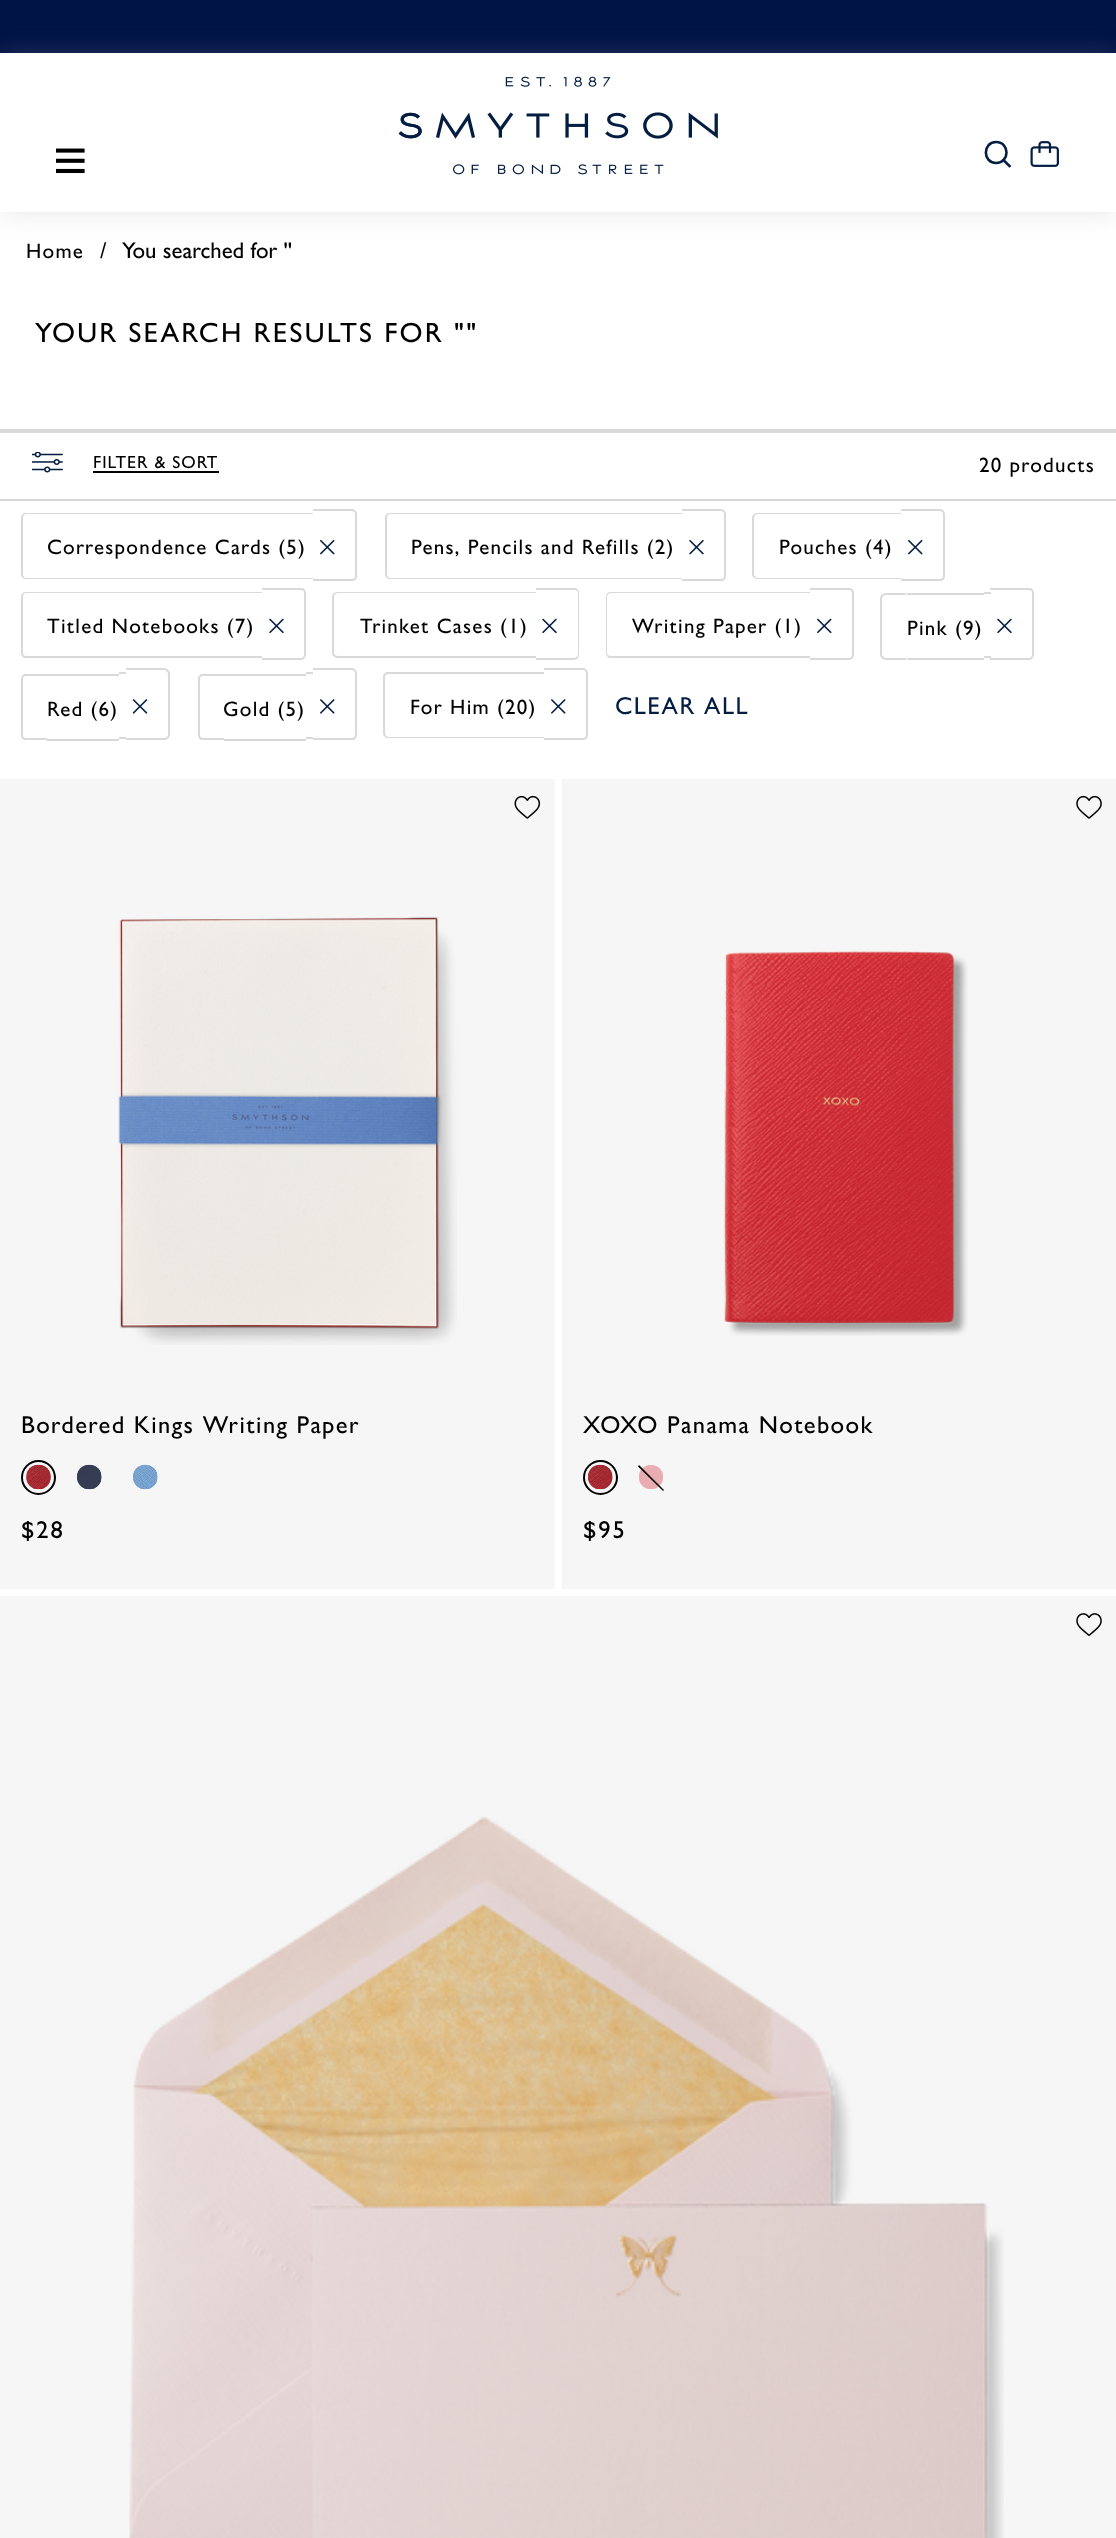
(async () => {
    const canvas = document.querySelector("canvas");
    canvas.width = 1116;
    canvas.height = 2538;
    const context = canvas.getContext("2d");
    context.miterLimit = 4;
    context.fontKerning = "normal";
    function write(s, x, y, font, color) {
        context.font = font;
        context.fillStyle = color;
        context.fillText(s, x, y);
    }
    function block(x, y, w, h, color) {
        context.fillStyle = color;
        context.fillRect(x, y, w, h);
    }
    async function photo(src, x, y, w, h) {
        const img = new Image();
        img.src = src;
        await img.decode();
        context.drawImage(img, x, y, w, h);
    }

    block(0, 0, 1116, 2538, "rgb(255, 255, 255)");
    block(0, 0, 1116, 53, "rgb(0, 20, 70)");
    context.save();
    context.beginPath();
    context.moveTo(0, 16);
    context.lineTo(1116, 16);
    context.lineTo(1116, 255);
    context.lineTo(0, 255);
    context.closePath();
    context.moveTo(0, 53);
    context.lineTo(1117, 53);
    context.lineTo(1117, 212);
    context.lineTo(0, 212);
    context.closePath();
    context.clip("evenodd");
    context.fillStyle = "rgba(170, 170, 170, 0.25)";
    context.filter = "blur(13px)";
    context.beginPath();
    context.rect(0, 56, 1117, 159);
    context.fill();
    context.filter = "none";
    context.restore();
    await photo("media/1.png", 56, 148, 29, 26);
    await photo("media/2.png", 398, 76, 320, 99);
    context.beginPath();
    context.moveTo(996, 163);
    context.bezierCurveTo(1010, 163, 1010, 142, 996, 142);
    context.bezierCurveTo(982.5, 142, 982.5, 163, 996, 163);
    context.closePath();
    context.strokeStyle = "rgb(4, 30, 66)";
    context.lineWidth = 2.6;
    context.lineCap = "round";
    context.lineJoin = "round";
    context.stroke();
    context.beginPath();
    context.moveTo(1009.5, 166);
    context.lineTo(1003.5, 160);
    context.lineCap = "square";
    context.stroke();
    await photo("media/3.png", 1030, 141, 29, 26);
    context.letterSpacing = "1.25px";
    write("Home", 26, 258, "500 21px 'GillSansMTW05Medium'", "rgb(0, 0, 0)");
    context.letterSpacing = "0px";
    write("/", 100, 258, "500 22.75px 'GillSansMTW05Medium'", "rgb(0, 0, 0)");
    write("You searched for ''", 122, 258, "500 22.75px 'GillSansMTW05Medium'", "rgb(0, 0, 0)");
    context.letterSpacing = "2.25px";
    write("YOUR SEARCH RESULTS FOR \"\"", 35, 342, "500 28px 'GillSansMTW05Medium'", "rgb(0, 0, 0)");
    block(0, 429, 1116, 4, "rgb(217, 217, 217)");
    block(0, 499, 1116, 2, "rgb(217, 217, 217)");
    await photo("media/4.png", 32, 452, 31, 21);
    context.letterSpacing = "1px";
    write("FILTER & SORT", 93, 468, "500 17.5px 'GillSansMTW05Medium'", "rgb(0, 0, 0)");
    block(93, 471, 126, 2, "rgb(0, 0, 0)");
    context.letterSpacing = "1.25px";
    write("20 products", 979, 472, "500 21px 'GillSansMTW05Medium'", "rgb(0, 0, 0)");
    context.fillStyle = "rgb(217, 217, 217)";
    context.beginPath();
    context.moveTo(26, 513);
    context.lineTo(313, 513);
    context.lineTo(313, 579);
    context.lineTo(26, 579);
    context.bezierCurveTo(23, 579, 21, 577, 21, 574);
    context.lineTo(21, 518);
    context.bezierCurveTo(21, 515, 23, 513, 26, 513);
    context.closePath();
    context.moveTo(26, 514);
    context.lineTo(313, 514);
    context.lineTo(313, 578);
    context.lineTo(26, 578);
    context.bezierCurveTo(24, 578, 23, 576, 23, 574);
    context.lineTo(23, 518);
    context.bezierCurveTo(23, 516, 24, 514, 26, 514);
    context.closePath();
    context.fill("evenodd");
    write("Correspondence Cards (5)", 47, 554, "500 21px 'GillSansMTW05Medium'", "rgb(0, 0, 0)");
    context.fillStyle = "rgb(217, 217, 217)";
    context.beginPath();
    context.moveTo(313, 509);
    context.lineTo(352, 509);
    context.bezierCurveTo(355, 509, 357, 512, 357, 514);
    context.lineTo(357, 576);
    context.bezierCurveTo(357, 579, 355, 581, 352, 581);
    context.lineTo(313, 581);
    context.closePath();
    context.moveTo(313, 511);
    context.lineTo(352, 511);
    context.bezierCurveTo(354, 511, 355, 513, 355, 514);
    context.lineTo(355, 576);
    context.bezierCurveTo(355, 578, 354, 579, 352, 579);
    context.lineTo(313, 579);
    context.closePath();
    context.fill("evenodd");
    await photo("media/5.png", 320, 539, 15, 16);
    context.beginPath();
    context.moveTo(390, 513);
    context.lineTo(682, 513);
    context.lineTo(682, 579);
    context.lineTo(390, 579);
    context.bezierCurveTo(387, 579, 385, 577, 385, 574);
    context.lineTo(385, 518);
    context.bezierCurveTo(385, 515, 387, 513, 390, 513);
    context.closePath();
    context.moveTo(390, 514);
    context.lineTo(682, 514);
    context.lineTo(682, 578);
    context.lineTo(390, 578);
    context.bezierCurveTo(388, 578, 387, 576, 387, 574);
    context.lineTo(387, 518);
    context.bezierCurveTo(387, 516, 388, 514, 390, 514);
    context.closePath();
    context.fill("evenodd");
    write("Pens, Pencils and Refills (2)", 411, 554, "500 21px 'GillSansMTW05Medium'", "rgb(0, 0, 0)");
    context.fillStyle = "rgb(217, 217, 217)";
    context.beginPath();
    context.moveTo(682, 509);
    context.lineTo(721, 509);
    context.bezierCurveTo(724, 509, 726, 512, 726, 514);
    context.lineTo(726, 576);
    context.bezierCurveTo(726, 579, 724, 581, 721, 581);
    context.lineTo(682, 581);
    context.closePath();
    context.moveTo(682, 511);
    context.lineTo(721, 511);
    context.bezierCurveTo(723, 511, 724, 513, 724, 514);
    context.lineTo(724, 576);
    context.bezierCurveTo(724, 578, 723, 579, 721, 579);
    context.lineTo(682, 579);
    context.closePath();
    context.fill("evenodd");
    await photo("media/6.png", 689, 540, 15, 15);
    context.beginPath();
    context.moveTo(758, 513);
    context.lineTo(901, 513);
    context.lineTo(901, 579);
    context.lineTo(758, 579);
    context.bezierCurveTo(755, 579, 752, 577, 752, 574);
    context.lineTo(752, 518);
    context.bezierCurveTo(752, 515, 755, 513, 758, 513);
    context.closePath();
    context.moveTo(758, 514);
    context.lineTo(901, 514);
    context.lineTo(901, 578);
    context.lineTo(758, 578);
    context.bezierCurveTo(756, 578, 754, 576, 754, 574);
    context.lineTo(754, 518);
    context.bezierCurveTo(754, 516, 756, 514, 758, 514);
    context.closePath();
    context.fill("evenodd");
    write("Pouches (4)", 779, 554, "500 21px 'GillSansMTW05Medium'", "rgb(0, 0, 0)");
    context.fillStyle = "rgb(217, 217, 217)";
    context.beginPath();
    context.moveTo(901, 509);
    context.lineTo(940, 509);
    context.bezierCurveTo(943, 509, 945, 512, 945, 514);
    context.lineTo(945, 576);
    context.bezierCurveTo(945, 579, 943, 581, 940, 581);
    context.lineTo(901, 581);
    context.closePath();
    context.moveTo(901, 511);
    context.lineTo(940, 511);
    context.bezierCurveTo(942, 511, 943, 513, 943, 514);
    context.lineTo(943, 576);
    context.bezierCurveTo(943, 578, 942, 579, 940, 579);
    context.lineTo(901, 579);
    context.closePath();
    context.fill("evenodd");
    await photo("media/5.png", 908, 539, 15, 16);
    context.beginPath();
    context.moveTo(26, 592);
    context.lineTo(262, 592);
    context.lineTo(262, 658);
    context.lineTo(26, 658);
    context.bezierCurveTo(23, 658, 21, 656, 21, 653);
    context.lineTo(21, 597);
    context.bezierCurveTo(21, 594, 23, 592, 26, 592);
    context.closePath();
    context.moveTo(26, 593);
    context.lineTo(262, 593);
    context.lineTo(262, 656);
    context.lineTo(26, 656);
    context.bezierCurveTo(24, 656, 23, 655, 23, 653);
    context.lineTo(23, 597);
    context.bezierCurveTo(23, 595, 24, 593, 26, 593);
    context.closePath();
    context.fill("evenodd");
    write("Titled Notebooks (7)", 47, 633, "500 21px 'GillSansMTW05Medium'", "rgb(0, 0, 0)");
    context.fillStyle = "rgb(217, 217, 217)";
    context.beginPath();
    context.moveTo(262, 588);
    context.lineTo(301, 588);
    context.bezierCurveTo(304, 588, 306, 590, 306, 593);
    context.lineTo(306, 654);
    context.bezierCurveTo(306, 657, 304, 660, 301, 660);
    context.lineTo(262, 660);
    context.closePath();
    context.moveTo(262, 590);
    context.lineTo(301, 590);
    context.bezierCurveTo(303, 590, 304, 591, 304, 593);
    context.lineTo(304, 654);
    context.bezierCurveTo(304, 656, 303, 658, 301, 658);
    context.lineTo(262, 658);
    context.closePath();
    context.fill("evenodd");
    await photo("media/7.png", 269, 618, 15, 16);
    context.beginPath();
    context.moveTo(338, 592);
    context.lineTo(536, 592);
    context.lineTo(536, 658);
    context.lineTo(338, 658);
    context.bezierCurveTo(335, 658, 332, 656, 332, 653);
    context.lineTo(332, 597);
    context.bezierCurveTo(332, 594, 335, 592, 338, 592);
    context.closePath();
    context.moveTo(338, 593);
    context.lineTo(536, 593);
    context.lineTo(536, 656);
    context.lineTo(338, 656);
    context.bezierCurveTo(336, 656, 334, 655, 334, 653);
    context.lineTo(334, 597);
    context.bezierCurveTo(334, 595, 336, 593, 338, 593);
    context.closePath();
    context.fill("evenodd");
    write("Trinket Cases (1)", 360, 633, "500 21px 'GillSansMTW05Medium'", "rgb(0, 0, 0)");
    context.fillStyle = "rgb(217, 217, 217)";
    context.beginPath();
    context.moveTo(536, 588);
    context.lineTo(574, 588);
    context.bezierCurveTo(577, 588, 579, 590, 579, 593);
    context.lineTo(579, 654);
    context.bezierCurveTo(579, 657, 577, 660, 574, 660);
    context.lineTo(536, 660);
    context.closePath();
    context.moveTo(536, 590);
    context.lineTo(574, 590);
    context.bezierCurveTo(576, 590, 578, 591, 578, 593);
    context.lineTo(578, 654);
    context.bezierCurveTo(578, 656, 576, 658, 574, 658);
    context.lineTo(536, 658);
    context.closePath();
    context.fill("evenodd");
    await photo("media/7.png", 542, 618, 15, 16);
    context.beginPath();
    context.moveTo(611, 592);
    context.lineTo(810, 592);
    context.lineTo(810, 658);
    context.lineTo(611, 658);
    context.bezierCurveTo(608, 658, 606, 656, 606, 653);
    context.lineTo(606, 597);
    context.bezierCurveTo(606, 594, 608, 592, 611, 592);
    context.closePath();
    context.moveTo(611, 593);
    context.lineTo(810, 593);
    context.lineTo(810, 656);
    context.lineTo(611, 656);
    context.bezierCurveTo(609, 656, 607, 655, 607, 653);
    context.lineTo(607, 597);
    context.bezierCurveTo(607, 595, 609, 593, 611, 593);
    context.closePath();
    context.fill("evenodd");
    write("Writing Paper (1)", 632, 633, "500 21px 'GillSansMTW05Medium'", "rgb(0, 0, 0)");
    context.fillStyle = "rgb(217, 217, 217)";
    context.beginPath();
    context.moveTo(810, 588);
    context.lineTo(849, 588);
    context.bezierCurveTo(852, 588, 854, 590, 854, 593);
    context.lineTo(854, 654);
    context.bezierCurveTo(854, 657, 852, 660, 849, 660);
    context.lineTo(810, 660);
    context.closePath();
    context.moveTo(810, 590);
    context.lineTo(849, 590);
    context.bezierCurveTo(851, 590, 852, 591, 852, 593);
    context.lineTo(852, 654);
    context.bezierCurveTo(852, 656, 851, 658, 849, 658);
    context.lineTo(810, 658);
    context.closePath();
    context.fill("evenodd");
    await photo("media/8.png", 817, 618, 15, 16);
    context.beginPath();
    context.moveTo(886, 593);
    context.lineTo(906, 593);
    context.lineTo(906, 660);
    context.lineTo(886, 660);
    context.bezierCurveTo(883, 660, 880, 657, 880, 654);
    context.lineTo(880, 598);
    context.bezierCurveTo(880, 596, 883, 593, 886, 593);
    context.closePath();
    context.moveTo(886, 595);
    context.lineTo(906, 595);
    context.lineTo(906, 658);
    context.lineTo(886, 658);
    context.bezierCurveTo(884, 658, 882, 656, 882, 654);
    context.lineTo(882, 598);
    context.bezierCurveTo(882, 597, 884, 595, 886, 595);
    context.closePath();
    context.fill("evenodd");
    block(907, 593, 77, 2, "rgb(217, 217, 217)");
    block(907, 658, 77, 2, "rgb(217, 217, 217)");
    block(984, 592, 7, 2, "rgb(217, 217, 217)");
    block(984, 656, 7, 2, "rgb(217, 217, 217)");
    context.beginPath();
    context.moveTo(990, 588);
    context.lineTo(1029, 588);
    context.bezierCurveTo(1032, 588, 1034, 590, 1034, 593);
    context.lineTo(1034, 654);
    context.bezierCurveTo(1034, 657, 1032, 660, 1029, 660);
    context.lineTo(990, 660);
    context.closePath();
    context.moveTo(990, 590);
    context.lineTo(1029, 590);
    context.bezierCurveTo(1031, 590, 1032, 591, 1032, 593);
    context.lineTo(1032, 654);
    context.bezierCurveTo(1032, 656, 1031, 658, 1029, 658);
    context.lineTo(990, 658);
    context.closePath();
    context.fill("evenodd");
    write("Pink (9)", 907, 635, "500 21px 'GillSansMTW05Medium'", "rgb(0, 0, 0)");
    await photo("media/7.png", 997, 618, 15, 16);
    context.fillStyle = "rgb(217, 217, 217)";
    context.beginPath();
    context.moveTo(26, 674);
    context.lineTo(47, 674);
    context.lineTo(47, 740);
    context.lineTo(26, 740);
    context.bezierCurveTo(23, 740, 21, 738, 21, 735);
    context.lineTo(21, 679);
    context.bezierCurveTo(21, 676, 23, 674, 26, 674);
    context.closePath();
    context.moveTo(26, 676);
    context.lineTo(47, 676);
    context.lineTo(47, 738);
    context.lineTo(26, 738);
    context.bezierCurveTo(24, 738, 23, 737, 23, 735);
    context.lineTo(23, 679);
    context.bezierCurveTo(23, 677, 24, 676, 26, 676);
    context.closePath();
    context.fill("evenodd");
    block(47, 674, 72, 2, "rgb(217, 217, 217)");
    block(47, 739, 72, 2, "rgb(217, 217, 217)");
    block(119, 672, 7, 2, "rgb(217, 217, 217)");
    block(119, 737, 7, 2, "rgb(217, 217, 217)");
    context.beginPath();
    context.moveTo(126, 668);
    context.lineTo(164, 668);
    context.bezierCurveTo(167, 668, 170, 671, 170, 674);
    context.lineTo(170, 735);
    context.bezierCurveTo(170, 738, 167, 740, 164, 740);
    context.lineTo(126, 740);
    context.closePath();
    context.moveTo(126, 670);
    context.lineTo(164, 670);
    context.bezierCurveTo(166, 670, 168, 672, 168, 674);
    context.lineTo(168, 735);
    context.bezierCurveTo(168, 737, 166, 738, 164, 738);
    context.lineTo(126, 738);
    context.closePath();
    context.fill("evenodd");
    write("Red (6)", 47, 716, "500 21px 'GillSansMTW05Medium'", "rgb(0, 0, 0)");
    await photo("media/9.png", 132, 699, 16, 15);
    context.fillStyle = "rgb(217, 217, 217)";
    context.beginPath();
    context.moveTo(203, 674);
    context.lineTo(224, 674);
    context.lineTo(224, 740);
    context.lineTo(203, 740);
    context.bezierCurveTo(200, 740, 198, 738, 198, 735);
    context.lineTo(198, 679);
    context.bezierCurveTo(198, 676, 200, 674, 203, 674);
    context.closePath();
    context.moveTo(203, 676);
    context.lineTo(224, 676);
    context.lineTo(224, 738);
    context.lineTo(203, 738);
    context.bezierCurveTo(201, 738, 200, 737, 200, 735);
    context.lineTo(200, 679);
    context.bezierCurveTo(200, 677, 201, 676, 203, 676);
    context.closePath();
    context.fill("evenodd");
    block(224, 674, 82, 2, "rgb(217, 217, 217)");
    block(224, 739, 82, 2, "rgb(217, 217, 217)");
    block(306, 672, 7, 2, "rgb(217, 217, 217)");
    block(306, 737, 7, 2, "rgb(217, 217, 217)");
    context.beginPath();
    context.moveTo(313, 668);
    context.lineTo(352, 668);
    context.bezierCurveTo(355, 668, 357, 671, 357, 674);
    context.lineTo(357, 735);
    context.bezierCurveTo(357, 738, 355, 740, 352, 740);
    context.lineTo(313, 740);
    context.closePath();
    context.moveTo(313, 670);
    context.lineTo(352, 670);
    context.bezierCurveTo(354, 670, 355, 672, 355, 674);
    context.lineTo(355, 735);
    context.bezierCurveTo(355, 737, 354, 738, 352, 738);
    context.lineTo(313, 738);
    context.closePath();
    context.fill("evenodd");
    write("Gold (5)", 223, 716, "500 21px 'GillSansMTW05Medium'", "rgb(0, 0, 0)");
    await photo("media/10.png", 320, 699, 15, 15);
    context.fillStyle = "rgb(217, 217, 217)";
    context.beginPath();
    context.moveTo(388, 672);
    context.lineTo(544, 672);
    context.lineTo(544, 738);
    context.lineTo(388, 738);
    context.bezierCurveTo(386, 738, 383, 736, 383, 733);
    context.lineTo(383, 677);
    context.bezierCurveTo(383, 674, 386, 672, 388, 672);
    context.closePath();
    context.moveTo(388, 674);
    context.lineTo(544, 674);
    context.lineTo(544, 737);
    context.lineTo(388, 737);
    context.bezierCurveTo(387, 737, 385, 735, 385, 733);
    context.lineTo(385, 677);
    context.bezierCurveTo(385, 675, 387, 674, 388, 674);
    context.closePath();
    context.fill("evenodd");
    write("For Him (20)", 410, 714, "500 21px 'GillSansMTW05Medium'", "rgb(0, 0, 0)");
    context.fillStyle = "rgb(217, 217, 217)";
    context.beginPath();
    context.moveTo(544, 668);
    context.lineTo(583, 668);
    context.bezierCurveTo(586, 668, 588, 671, 588, 674);
    context.lineTo(588, 735);
    context.bezierCurveTo(588, 738, 586, 740, 583, 740);
    context.lineTo(544, 740);
    context.closePath();
    context.moveTo(544, 670);
    context.lineTo(583, 670);
    context.bezierCurveTo(585, 670, 586, 672, 586, 674);
    context.lineTo(586, 735);
    context.bezierCurveTo(586, 737, 585, 738, 583, 738);
    context.lineTo(544, 738);
    context.closePath();
    context.fill("evenodd");
    await photo("media/10.png", 551, 699, 15, 15);
    context.letterSpacing = "1.5px";
    write("CLEAR ALL", 615, 714, "500 24.5px 'GillSansMTW05Medium'", "rgb(4, 30, 66)");
    block(0, 779, 555, 810, "rgb(246, 246, 246)");
    await photo("media/11.png", 514, 795, 27, 24);
    await photo("media/12.png", 118, 917, 339, 428);
    context.letterSpacing = "1.4px";
    write("Bordered Kings Writing Paper", 21, 1433, "500 24.5px 'GillSansMTW05Medium'", "rgb(0, 0, 0)");
    context.beginPath();
    context.arc(38.5, 1477.5, 16.5, 0, Math.PI * 2);
    context.strokeStyle = "rgb(0, 0, 0)";
    context.lineWidth = 2;
    context.stroke();
    await photo("media/13.png", 26, 1464, 25, 26);
    await photo("media/14.png", 26, 1464, 25, 26);
    await photo("media/15.png", 77, 1464, 25, 26);
    await photo("media/16.png", 77, 1464, 25, 26);
    await photo("media/17.png", 133, 1464, 25, 26);
    await photo("media/18.png", 133, 1464, 25, 26);
    context.letterSpacing = "2px";
    write("$28", 21, 1538, "500 24.5px 'GillSansMTW05Medium'", "rgb(0, 0, 0)");
    block(562, 779, 554, 810, "rgb(246, 246, 246)");
    await photo("media/19.png", 1076, 795, 26, 24);
    await photo("media/20.png", 724, 951, 244, 385);
    context.letterSpacing = "1.4px";
    write("XOXO Panama Notebook", 583, 1433, "500 24.5px 'GillSansMTW05Medium'", "rgb(0, 0, 0)");
    context.beginPath();
    context.arc(600.5, 1477.5, 16.5, 0, Math.PI * 2);
    context.stroke();
    await photo("media/21.png", 588, 1464, 25, 26);
    await photo("media/22.png", 588, 1464, 25, 26);
    await photo("media/23.png", 639, 1465, 24, 24);
    context.beginPath();
    context.moveTo(639, 1465);
    context.lineTo(664, 1490);
    context.lineTo(663, 1491);
    context.lineTo(638, 1466.5);
    context.closePath();
    context.fill();
    context.letterSpacing = "2px";
    write("$95", 583, 1538, "500 24.5px 'GillSansMTW05Medium'", "rgb(0, 0, 0)");
    block(0, 1596, 1116, 942, "rgb(246, 246, 246)");
    await photo("media/24.png", 1076, 1613, 26, 23);
    await photo("media/25.png", 129, 1816, 875, 722);
})();
